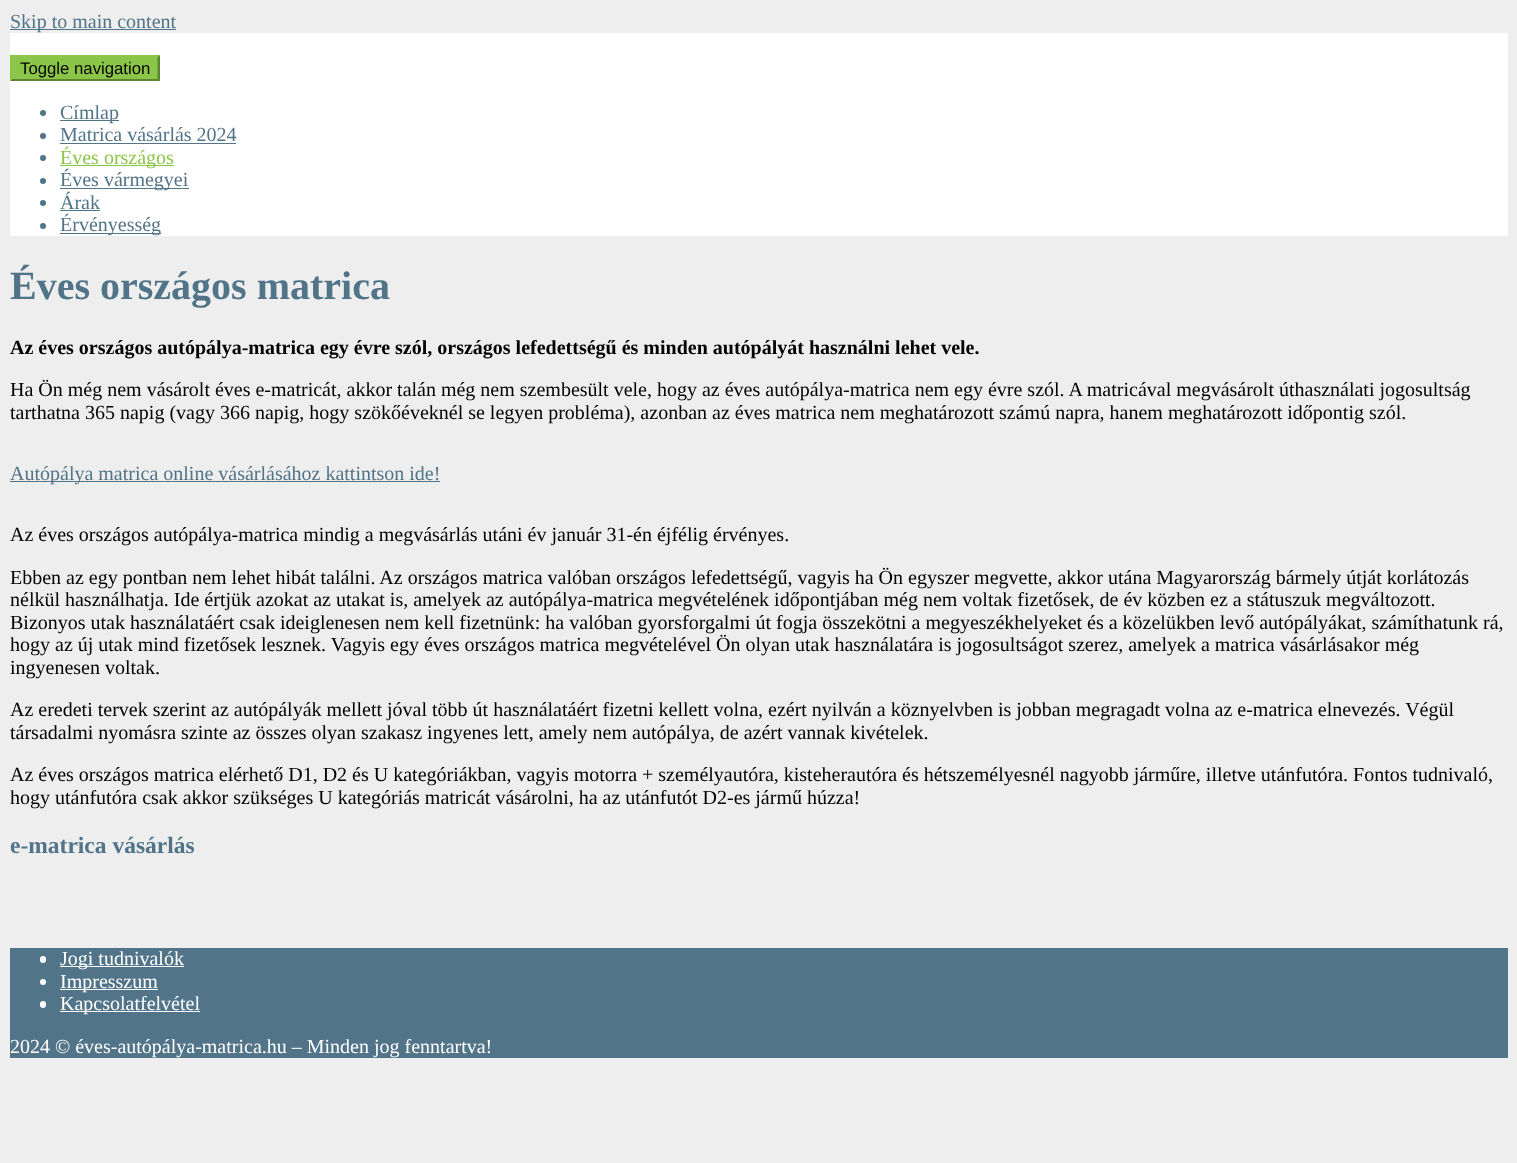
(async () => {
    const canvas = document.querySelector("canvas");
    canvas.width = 1517;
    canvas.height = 1163;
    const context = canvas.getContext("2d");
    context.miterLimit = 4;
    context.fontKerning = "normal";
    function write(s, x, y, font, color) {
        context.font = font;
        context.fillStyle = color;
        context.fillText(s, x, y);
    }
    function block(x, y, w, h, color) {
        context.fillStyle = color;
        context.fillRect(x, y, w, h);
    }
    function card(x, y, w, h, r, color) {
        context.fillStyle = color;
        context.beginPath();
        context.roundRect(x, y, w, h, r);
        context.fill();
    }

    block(0, 0, 1517, 1163, "rgb(238, 238, 238)");
    block(10, 29, 166, 1, "rgb(81, 116, 136)");
    write("Skip to main content", 10, 28, "20px Liberation Serif", "rgb(81, 116, 136)");
    block(10, 33, 1498, 203, "rgb(255, 255, 255)");
    block(10, 55, 150, 26, "rgb(139, 198, 72)");
    context.fillStyle = "rgb(93, 132, 48)";
    context.beginPath();
    context.moveTo(160, 55);
    context.lineTo(160, 81);
    context.lineTo(157.5, 79);
    context.lineTo(157.5, 57.5);
    context.closePath();
    context.fill();
    context.beginPath();
    context.moveTo(160, 81);
    context.lineTo(10, 81);
    context.lineTo(12, 79);
    context.lineTo(158, 79);
    context.closePath();
    context.fill();
    context.fillStyle = "rgb(139, 198, 72)";
    context.beginPath();
    context.moveTo(10, 81);
    context.lineTo(10, 55);
    context.lineTo(12.5, 57.5);
    context.lineTo(12.5, 79);
    context.closePath();
    context.fill();
    write("Toggle navigation", 20, 74, "16.75px Liberation Sans", "rgb(0, 0, 0)");
    context.fillStyle = "rgb(81, 116, 136)";
    context.beginPath();
    context.arc(43, 113, 3, 0, Math.PI * 2);
    context.fill();
    block(60, 120, 59, 1, "rgb(81, 116, 136)");
    write("Címlap", 60, 119, "20px Liberation Serif", "rgb(81, 116, 136)");
    context.beginPath();
    context.arc(43, 136, 3, 0, Math.PI * 2);
    context.fill();
    write("Matrica vásárlás 2024", 60, 141, "20px Liberation Serif", "rgb(81, 116, 136)");
    block(60, 143, 176, 1, "rgb(81, 116, 136)");
    context.beginPath();
    context.arc(43, 158, 3, 0, Math.PI * 2);
    context.fill();
    block(60, 165, 114, 1, "rgb(139, 198, 72)");
    write("Éves országos", 60, 164, "20px Liberation Serif", "rgb(139, 198, 72)");
    context.fillStyle = "rgb(81, 116, 136)";
    context.beginPath();
    context.arc(43, 181, 3, 0, Math.PI * 2);
    context.fill();
    block(60, 188, 129, 1, "rgb(81, 116, 136)");
    write("Éves vármegyei", 60, 186, "20px Liberation Serif", "rgb(81, 116, 136)");
    context.beginPath();
    context.arc(43, 203, 3, 0, Math.PI * 2);
    context.fill();
    write("Árak", 60, 209, "20px Liberation Serif", "rgb(81, 116, 136)");
    block(60, 210, 40, 1, "rgb(81, 116, 136)");
    context.beginPath();
    context.arc(43, 226, 3, 0, Math.PI * 2);
    context.fill();
    block(60, 233, 101, 1, "rgb(81, 116, 136)");
    write("Érvényesség", 60, 231, "20px Liberation Serif", "rgb(81, 116, 136)");
    write("Éves országos matrica", 10, 299, "bold 40px Liberation Serif", "rgb(81, 116, 136)");
    write("Az éves országos autópálya-matrica egy évre szól, országos lefedettségű és minden autópályát használni lehet vele.", 10, 354, "bold 20px Liberation Serif", "rgb(0, 0, 0)");
    write("Ha Ön még nem vásárolt éves e-matricát, akkor talán még nem szembesült vele, hogy az éves autópálya-matrica nem egy évre szól. A matricával megvásárolt úthasználati jogosultság", 10, 396, "20px Liberation Serif", "rgb(0, 0, 0)");
    write("tarthatna 365 napig (vagy 366 napig, hogy szökőéveknél se legyen probléma), azonban az éves matrica nem meghatározott számú napra, hanem meghatározott időpontig szól.", 10, 419, "20px Liberation Serif", "rgb(0, 0, 0)");
    block(10, 481, 430, 1, "rgb(81, 116, 136)");
    write("Autópálya matrica online vásárlásához kattintson ide!", 10, 480, "20px Liberation Serif", "rgb(81, 116, 136)");
    write("Az éves országos autópálya-matrica mindig a megvásárlás utáni év január 31-én éjfélig érvényes.", 10, 541, "20px Liberation Serif", "rgb(0, 0, 0)");
    write("Ebben az egy pontban nem lehet hibát találni. Az országos matrica valóban országos lefedettségű, vagyis ha Ön egyszer megvette, akkor utána Magyarország bármely útját korlátozás", 10, 584, "20px Liberation Serif", "rgb(0, 0, 0)");
    write("nélkül használhatja. Ide értjük azokat az utakat is, amelyek az autópálya-matrica megvételének időpontjában még nem voltak fizetősek, de év közben ez a státuszuk megváltozott.", 10, 606, "20px Liberation Serif", "rgb(0, 0, 0)");
    write("Bizonyos utak használatáért csak ideiglenesen nem kell fizetnünk: ha valóban gyorsforgalmi út fogja összekötni a megyeszékhelyeket és a közelükben levő autópályákat, számíthatunk rá,", 10, 629, "20px Liberation Serif", "rgb(0, 0, 0)");
    write("hogy az új utak mind fizetősek lesznek. Vagyis egy éves országos matrica megvételével Ön olyan utak használatára is jogosultságot szerez, amelyek a matrica vásárlásakor még", 10, 651, "20px Liberation Serif", "rgb(0, 0, 0)");
    write("ingyenesen voltak.", 10, 674, "20px Liberation Serif", "rgb(0, 0, 0)");
    write("Az eredeti tervek szerint az autópályák mellett jóval több út használatáért fizetni kellett volna, ezért nyilván a köznyelvben is jobban megragadt volna az e-matrica elnevezés. Végül", 10, 716, "20px Liberation Serif", "rgb(0, 0, 0)");
    write("társadalmi nyomásra szinte az összes olyan szakasz ingyenes lett, amely nem autópálya, de azért vannak kivételek.", 10, 739, "20px Liberation Serif", "rgb(0, 0, 0)");
    write("Az éves országos matrica elérhető D1, D2 és U kategóriákban, vagyis motorra + személyautóra, kisteherautóra és hétszemélyesnél nagyobb járműre, illetve utánfutóra. Fontos tudnivaló,", 10, 781, "20px Liberation Serif", "rgb(0, 0, 0)");
    write("hogy utánfutóra csak akkor szükséges U kategóriás matricát vásárolni, ha az utánfutót D2-es jármű húzza!", 10, 804, "20px Liberation Serif", "rgb(0, 0, 0)");
    write("e-matrica vásárlás", 10, 853, "bold 23.5px Liberation Serif", "rgb(81, 116, 136)");
    block(10, 948, 1498, 110, "rgb(81, 116, 136)");
    card(40, 956, 6, 7, 3, "rgb(255, 255, 255)");
    block(60, 966, 124, 1, "rgb(255, 255, 255)");
    write("Jogi tudnivalók", 60, 965, "20px Liberation Serif", "rgb(255, 255, 255)");
    context.beginPath();
    context.arc(43, 982, 3, 0, Math.PI * 2);
    context.fill();
    block(60, 989, 98, 1, "rgb(255, 255, 255)");
    write("Impresszum", 60, 988, "20px Liberation Serif", "rgb(255, 255, 255)");
    card(40, 1001, 6, 7, 3, "rgb(255, 255, 255)");
    block(60, 1011, 140, 1, "rgb(255, 255, 255)");
    write("Kapcsolatfelvétel", 60, 1010, "20px Liberation Serif", "rgb(255, 255, 255)");
    write("2024 © éves-autópálya-matrica.hu – Minden jog fenntartva!", 10, 1053, "20px Liberation Serif", "rgb(255, 255, 255)");
})();
